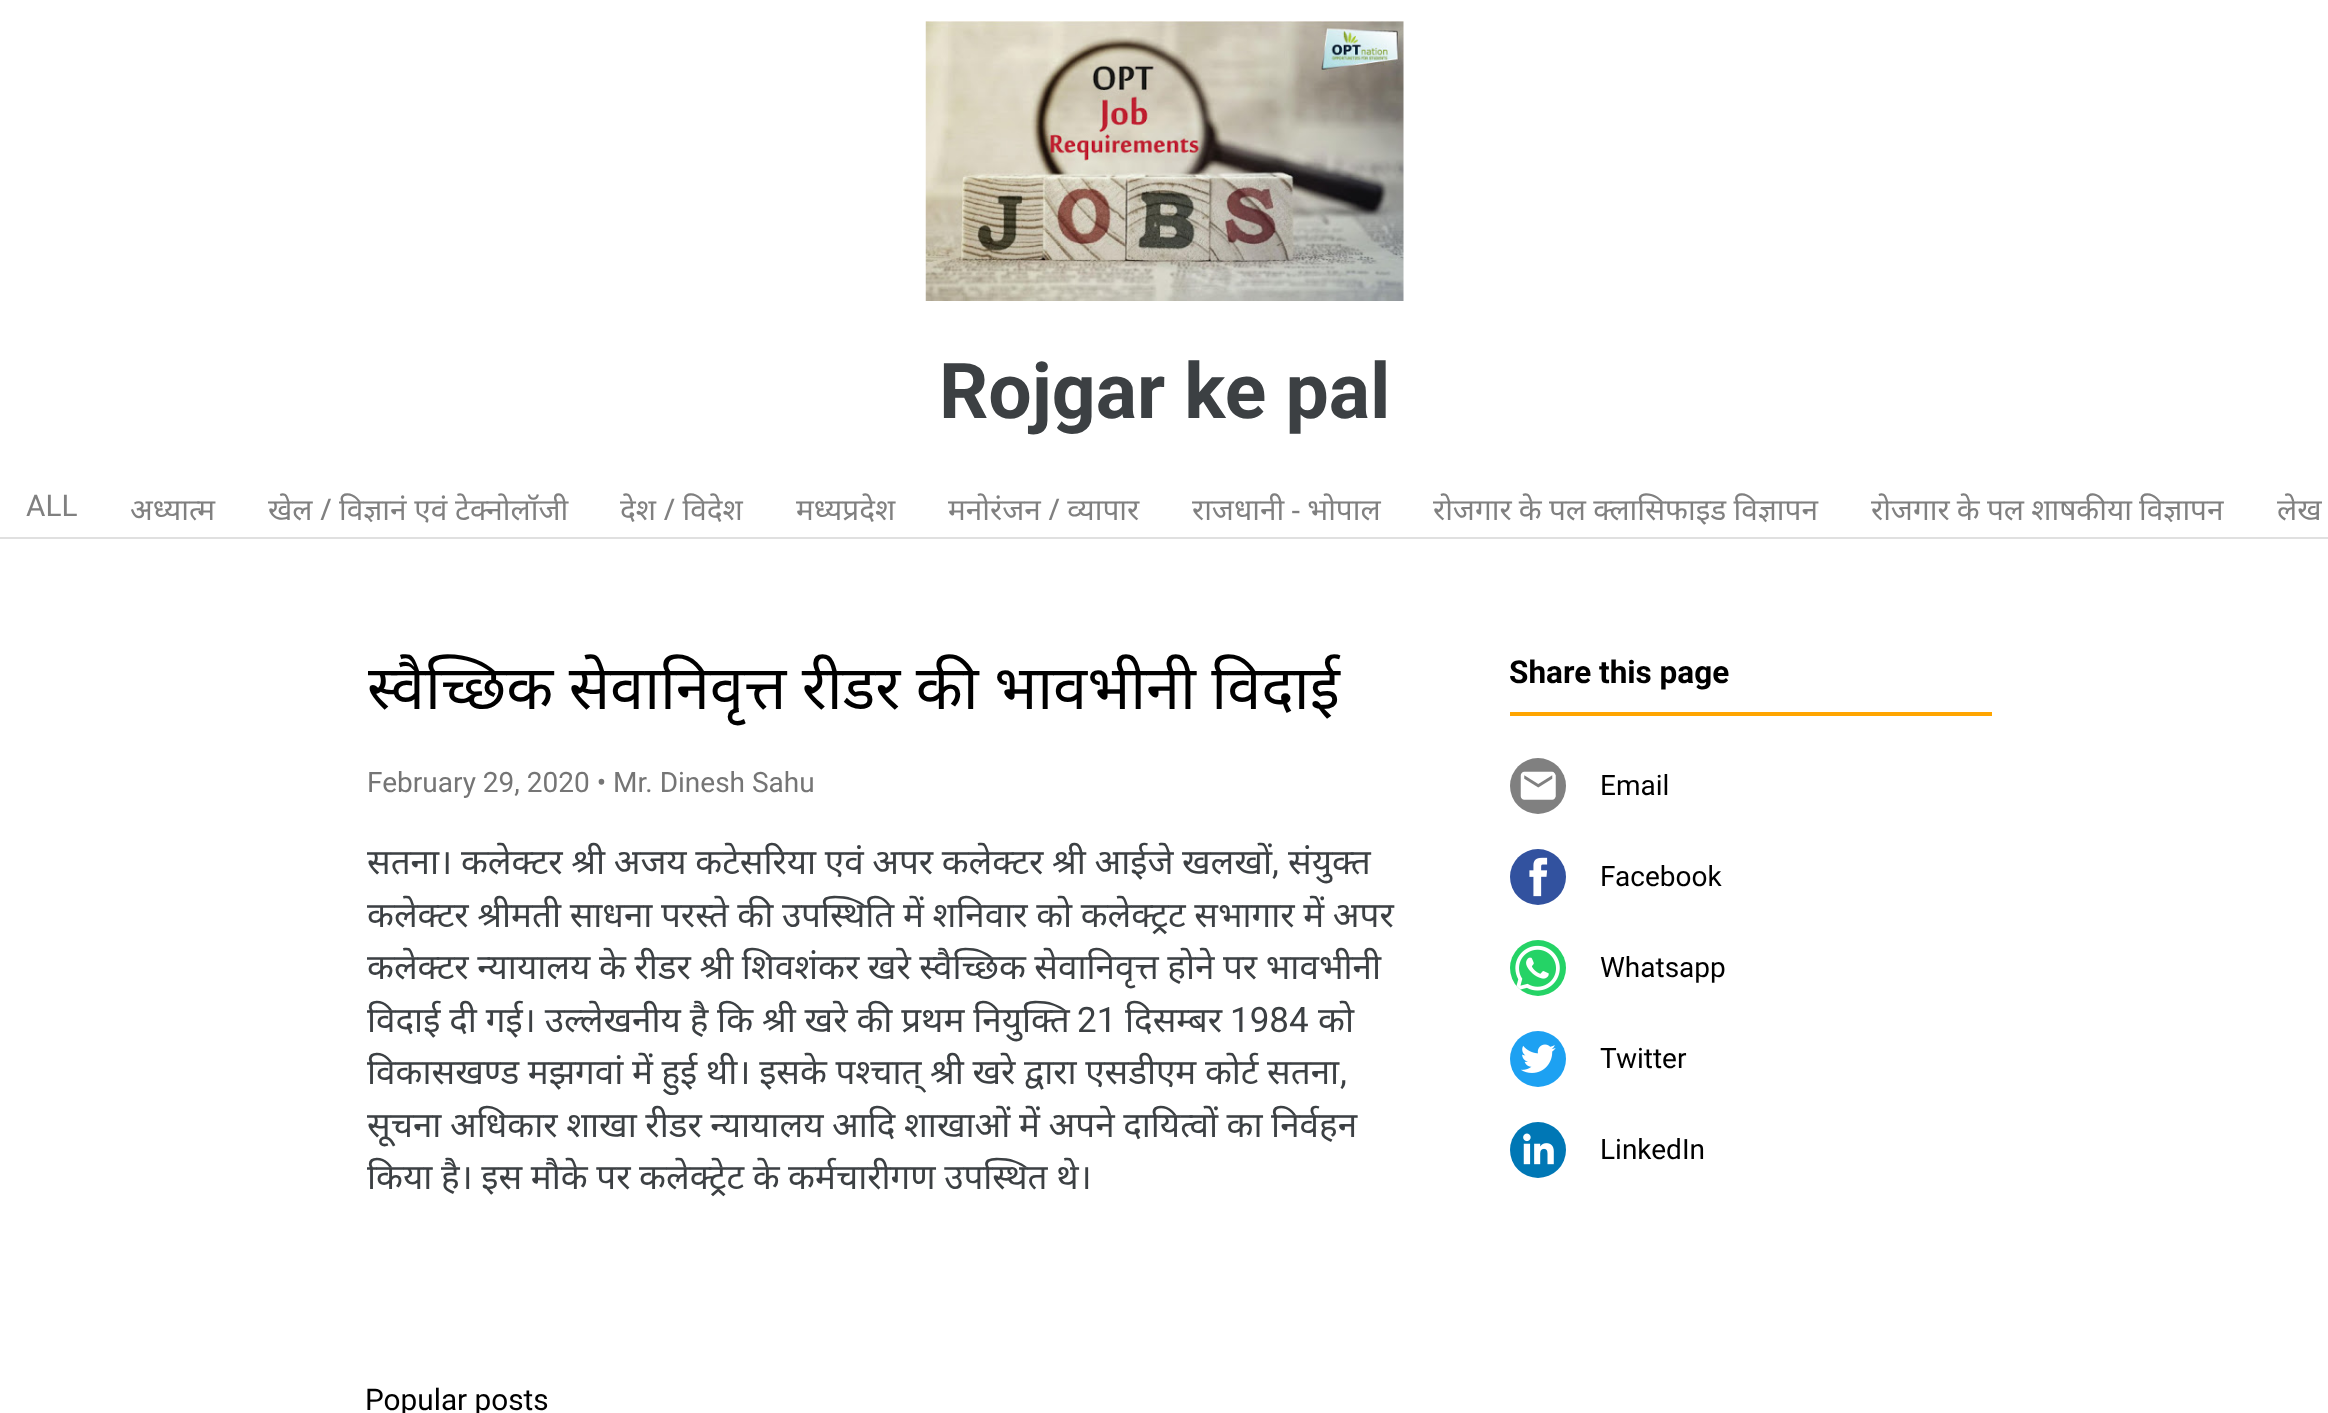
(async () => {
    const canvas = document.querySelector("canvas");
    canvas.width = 2328;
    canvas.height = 1413;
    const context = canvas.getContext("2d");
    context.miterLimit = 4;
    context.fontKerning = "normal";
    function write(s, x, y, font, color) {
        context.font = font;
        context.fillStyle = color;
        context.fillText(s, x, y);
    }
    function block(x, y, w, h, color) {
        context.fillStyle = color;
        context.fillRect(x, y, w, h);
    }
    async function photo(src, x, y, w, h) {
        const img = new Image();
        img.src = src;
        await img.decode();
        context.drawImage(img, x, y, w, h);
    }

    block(0, 0, 2328, 1413, "rgb(255, 255, 255)");
    block(0, 537, 2328, 2, "rgb(224, 224, 224)");
    await photo("media/1.png", 925, 21, 479, 280);
    write("Rojgar ke pal", 939, 418, "bold 77px Roboto", "rgb(60, 64, 67)");
    write("ALL", 26, 516, "29.75px Roboto", "rgb(128, 128, 128)");
    write("अध्यात्म", 130, 520, "29.75px Noto Sans", "rgb(128, 128, 128)");
    write("खेल / विज्ञानं एवं टेक्नोलॉजी", 268, 520, "29.75px Noto Sans", "rgb(128, 128, 128)");
    write("देश / विदेश", 620, 520, "29.75px Noto Sans", "rgb(128, 128, 128)");
    write("मध्यप्रदेश", 796, 520, "29.75px Noto Sans", "rgb(128, 128, 128)");
    write("मनोरंजन / व्यापार", 948, 520, "29.75px Noto Sans", "rgb(128, 128, 128)");
    context.wordSpacing = "-1px";
    write("राजधानी - भोपाल", 1192, 520, "29.75px Noto Sans", "rgb(128, 128, 128)");
    context.wordSpacing = "-0.5px";
    write("रोजगार के पल क्लासिफाइड विज्ञापन", 1433, 520, "29.75px Noto Sans", "rgb(128, 128, 128)");
    write("रोजगार के पल शाषकीया विज्ञापन", 1871, 520, "29.75px Noto Sans", "rgb(128, 128, 128)");
    context.wordSpacing = "1px";
    write("लेख", 2277, 520, "29.75px Noto Sans", "rgb(128, 128, 128)");
    context.save();
    context.beginPath();
    context.rect(368, 644, 1037, 93);
    context.clip();
    context.wordSpacing = "-0.5px";
    write("स्वैच्छिक सेवानिवृत्त रीडर की भावभीनी विदाई", 367, 709, "61.25px Noto Sans", "rgb(0, 0, 0)");
    context.restore();
    context.wordSpacing = "0px";
    write("February 29, 2020 • Mr. Dinesh Sahu", 367, 792, "28px Roboto", "rgb(117, 117, 117)");
    context.wordSpacing = "-0.5px";
    write("सतना। कलेक्टर श्री अजय कटेसरिया एवं अपर कलेक्टर श्री आईजे खलखों", 367, 874, "35px Noto Sans", "rgb(60, 64, 67)");
    context.wordSpacing = "0px";
    write(",", 1272, 874, "35px Roboto", "rgb(60, 64, 67)");
    write("संयुक्त", 1288, 874, "35px Noto Sans", "rgb(60, 64, 67)");
    context.wordSpacing = "-0.5px";
    write("कलेक्टर श्रीमती साधना परस्ते की उपस्थिति में शनिवार को कलेक्ट्रट सभागार में अपर", 367, 927, "35px Noto Sans", "rgb(60, 64, 67)");
    write("कलेक्टर न्यायालय के रीडर श्री शिवशंकर खरे स्वैच्छिक सेवानिवृत्त होने पर भावभीनी", 367, 979, "35px Noto Sans", "rgb(60, 64, 67)");
    context.wordSpacing = "-0.25px";
    write("विदाई दी गई। उल्लेखनीय है कि श्री खरे की प्रथम नियुक्ति", 367, 1032, "35px Noto Sans", "rgb(60, 64, 67)");
    context.wordSpacing = "0px";
    write("21", 1077, 1032, "35px Roboto", "rgb(60, 64, 67)");
    write("दिसम्बर", 1125, 1032, "35px Noto Sans", "rgb(60, 64, 67)");
    write("1984", 1230, 1032, "35px Roboto", "rgb(60, 64, 67)");
    write("को", 1318, 1032, "35px Noto Sans", "rgb(60, 64, 67)");
    context.wordSpacing = "-0.5px";
    write("विकासखण्ड मझगवां में हुई थी। इसके पश्चात् श्री खरे द्वारा एसडीएम कोर्ट सतना", 367, 1084, "35px Noto Sans", "rgb(60, 64, 67)");
    context.wordSpacing = "0px";
    write(",", 1340, 1084, "35px Roboto", "rgb(60, 64, 67)");
    context.wordSpacing = "-0.5px";
    write("सूचना अधिकार शाखा रीडर न्यायालय आदि शाखाओं में अपने दायित्वों का निर्वहन", 367, 1137, "35px Noto Sans", "rgb(60, 64, 67)");
    write("किया है। इस मौके पर कलेक्ट्रेट के कर्मचारीगण उपस्थित थे।", 367, 1189, "35px Noto Sans", "rgb(60, 64, 67)");
    context.wordSpacing = "0px";
    write("Popular posts", 365, 1410, "29.75px Roboto", "rgb(0, 0, 0)");
    block(1510, 712, 482, 4, "rgb(255, 165, 0)");
    write("Share this page", 1509, 683, "bold 31.5px Roboto", "rgb(0, 0, 0)");
    context.fillStyle = "rgb(128, 128, 128)";
    context.beginPath();
    context.arc(1538, 786, 28, 0, Math.PI * 2);
    context.fill();
    await photo("media/2.png", 1520, 771, 36, 29);
    write("Email", 1600, 795, "28px Roboto", "rgb(0, 0, 0)");
    context.fillStyle = "rgb(50, 82, 159)";
    context.beginPath();
    context.arc(1538, 877, 28, 0, Math.PI * 2);
    context.fill();
    await photo("media/3.png", 1529, 857, 19, 40);
    write("Facebook", 1600, 886, "28px Roboto", "rgb(0, 0, 0)");
    context.fillStyle = "rgb(37, 211, 102)";
    context.beginPath();
    context.arc(1538, 968, 28, 0, Math.PI * 2);
    context.fill();
    await photo("media/4.png", 1515, 945, 45, 46);
    write("Whatsapp", 1600, 977, "28px Roboto", "rgb(0, 0, 0)");
    context.fillStyle = "rgb(29, 161, 242)";
    context.beginPath();
    context.arc(1538, 1059, 28, 0, Math.PI * 2);
    context.fill();
    await photo("media/5.png", 1521, 1044, 35, 29);
    write("Twitter", 1600, 1068, "28px Roboto", "rgb(0, 0, 0)");
    context.fillStyle = "rgb(0, 119, 181)";
    context.beginPath();
    context.arc(1538, 1150, 28, 0, Math.PI * 2);
    context.fill();
    await photo("media/6.png", 1523, 1133, 31, 32);
    write("LinkedIn", 1600, 1159, "28px Roboto", "rgb(0, 0, 0)");
})();
